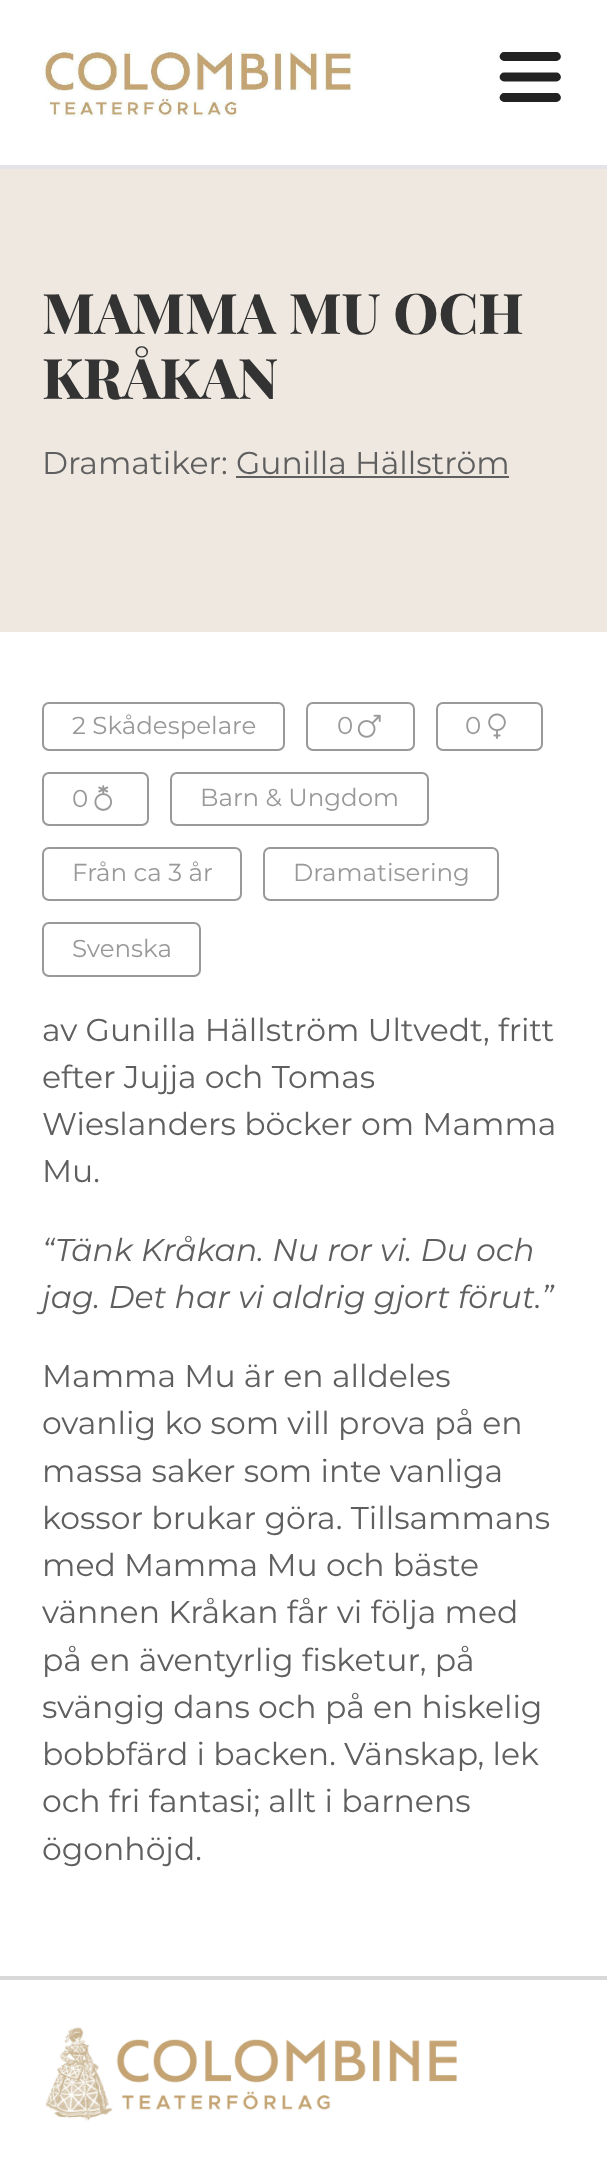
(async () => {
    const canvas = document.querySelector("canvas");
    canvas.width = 607;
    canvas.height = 2169;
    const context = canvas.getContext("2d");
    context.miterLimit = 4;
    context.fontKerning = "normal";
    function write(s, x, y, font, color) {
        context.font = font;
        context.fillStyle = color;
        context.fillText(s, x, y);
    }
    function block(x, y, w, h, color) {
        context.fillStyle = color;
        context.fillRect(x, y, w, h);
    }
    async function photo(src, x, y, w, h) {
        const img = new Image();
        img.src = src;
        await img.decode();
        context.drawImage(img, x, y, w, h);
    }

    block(0, 0, 607, 2169, "rgb(255, 255, 255)");
    block(0, 165, 607, 4, "rgb(228, 227, 233)");
    await photo("media/1.png", 42, 49, 311, 68);
    context.beginPath();
    context.moveTo(504, 56.5);
    context.lineTo(556.5, 56.5);
    context.moveTo(504, 77);
    context.lineTo(556.5, 77);
    context.moveTo(504, 97.5);
    context.lineTo(556.5, 97.5);
    context.strokeStyle = "rgb(34, 34, 34)";
    context.lineWidth = 8.8;
    context.lineCap = "round";
    context.lineJoin = "round";
    context.stroke();
    block(0, 169, 607, 463, "rgb(238, 232, 224)");
    write("MAMMA MU OCH", 42, 334, "800 56px Playfair Display", "rgb(51, 51, 51)");
    write("KRÅKAN", 42, 399, "800 56px Playfair Display", "rgb(51, 51, 51)");
    write("Dramatiker: Gunilla Hällström", 42, 474, "31.5px Montserrat", "rgb(95, 95, 95)");
    block(236, 476, 273, 2, "rgb(95, 95, 95)");
    context.beginPath();
    context.roundRect(43, 703, 241, 47, 6);
    context.strokeStyle = "rgb(153, 153, 153)";
    context.lineWidth = 2;
    context.lineJoin = "miter";
    context.stroke();
    write("2 Skådespelare", 72, 734, "24.5px Montserrat", "rgb(153, 153, 153)");
    context.beginPath();
    context.roundRect(307, 703, 107, 47, 6);
    context.stroke();
    write("0", 337, 734, "24.5px Montserrat", "rgb(153, 153, 153)");
    await photo("media/2.png", 357, 714, 24, 24);
    context.beginPath();
    context.roundRect(437, 703, 105, 47, 6);
    context.stroke();
    write("0", 465, 734, "24.5px Montserrat", "rgb(153, 153, 153)");
    await photo("media/3.png", 488, 713, 18, 26);
    context.beginPath();
    context.roundRect(43, 773, 105, 52, 6);
    context.stroke();
    write("0", 72, 807, "24.5px Montserrat", "rgb(153, 153, 153)");
    await photo("media/4.png", 94, 785, 18, 26);
    context.beginPath();
    context.roundRect(171, 773, 257, 52, 6);
    context.stroke();
    write("Barn & Ungdom", 200, 806, "24.5px Montserrat", "rgb(153, 153, 153)");
    context.beginPath();
    context.roundRect(43, 848, 198, 52, 6);
    context.stroke();
    write("Från ca 3 år", 72, 881, "24.5px Montserrat", "rgb(153, 153, 153)");
    context.beginPath();
    context.roundRect(264, 848, 234, 52, 6);
    context.stroke();
    write("Dramatisering", 293, 881, "24.5px Montserrat", "rgb(153, 153, 153)");
    context.beginPath();
    context.roundRect(43, 923, 157, 53, 6);
    context.stroke();
    write("Svenska", 72, 957, "24.5px Montserrat", "rgb(153, 153, 153)");
    write("av Gunilla Hällström Ultvedt, fritt", 42, 1041, "31.5px Montserrat", "rgb(95, 95, 95)");
    write("efter Jujja och Tomas", 42, 1088, "31.5px Montserrat", "rgb(95, 95, 95)");
    write("Wieslanders böcker om Mamma", 42, 1135, "31.5px Montserrat", "rgb(95, 95, 95)");
    write("Mu.", 42, 1182, "31.5px Montserrat", "rgb(95, 95, 95)");
    write("“Tänk Kråkan. Nu ror vi. Du och", 42, 1261, "italic 31.5px Montserrat", "rgb(95, 95, 95)");
    write("jag. Det har vi aldrig gjort förut.”", 42, 1308, "italic 31.5px Montserrat", "rgb(95, 95, 95)");
    write("Mamma Mu är en alldeles", 42, 1387, "31.5px Montserrat", "rgb(95, 95, 95)");
    write("ovanlig ko som vill prova på en", 42, 1434, "31.5px Montserrat", "rgb(95, 95, 95)");
    write("massa saker som inte vanliga", 42, 1482, "31.5px Montserrat", "rgb(95, 95, 95)");
    write("kossor brukar göra. Tillsammans", 42, 1529, "31.5px Montserrat", "rgb(95, 95, 95)");
    write("med Mamma Mu och bäste", 42, 1576, "31.5px Montserrat", "rgb(95, 95, 95)");
    write("vännen Kråkan får vi följa med", 42, 1623, "31.5px Montserrat", "rgb(95, 95, 95)");
    write("på en äventyrlig fisketur, på", 42, 1671, "31.5px Montserrat", "rgb(95, 95, 95)");
    write("svängig dans och på en hiskelig", 42, 1718, "31.5px Montserrat", "rgb(95, 95, 95)");
    write("bobbfärd i backen. Vänskap, lek", 42, 1765, "31.5px Montserrat", "rgb(95, 95, 95)");
    write("och fri fantasi; allt i barnens", 42, 1812, "31.5px Montserrat", "rgb(95, 95, 95)");
    write("ögonhöjd.", 42, 1860, "31.5px Montserrat", "rgb(95, 95, 95)");
    block(0, 1976, 607, 4, "rgb(217, 217, 217)");
    await photo("media/5.png", 45, 2026, 412, 95);
})();
